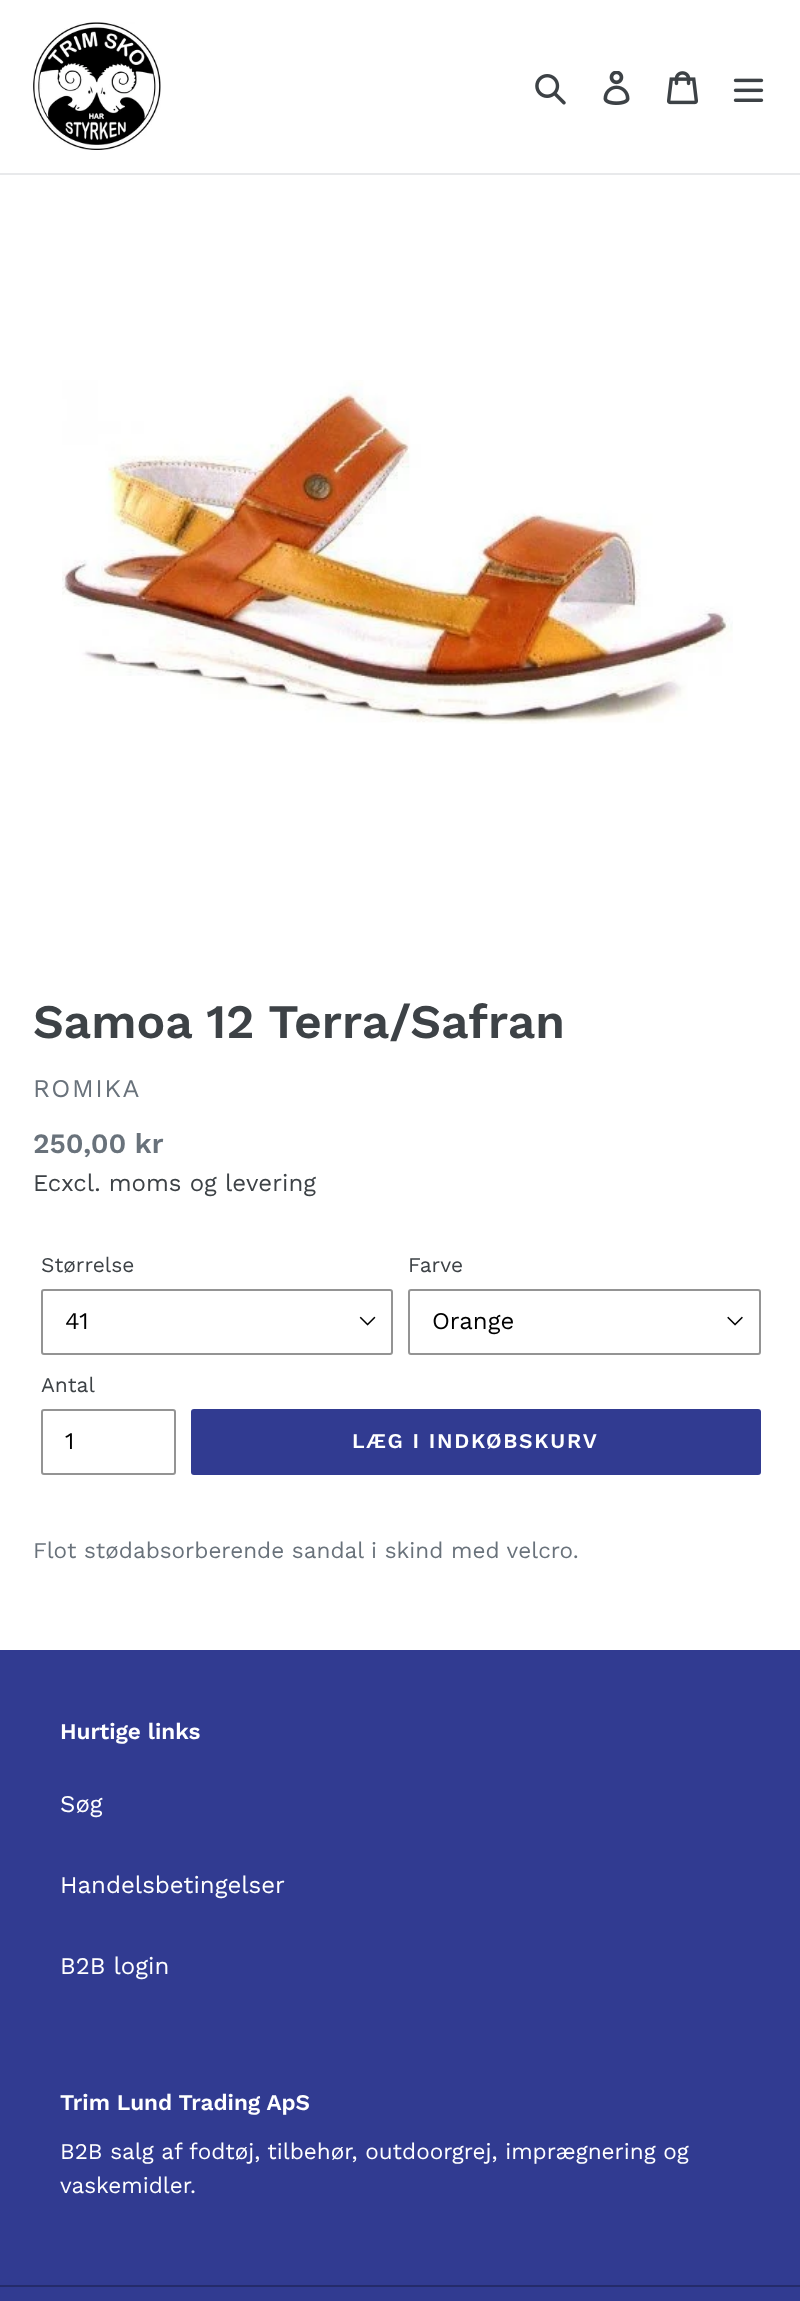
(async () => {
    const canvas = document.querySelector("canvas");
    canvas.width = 800;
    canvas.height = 2301;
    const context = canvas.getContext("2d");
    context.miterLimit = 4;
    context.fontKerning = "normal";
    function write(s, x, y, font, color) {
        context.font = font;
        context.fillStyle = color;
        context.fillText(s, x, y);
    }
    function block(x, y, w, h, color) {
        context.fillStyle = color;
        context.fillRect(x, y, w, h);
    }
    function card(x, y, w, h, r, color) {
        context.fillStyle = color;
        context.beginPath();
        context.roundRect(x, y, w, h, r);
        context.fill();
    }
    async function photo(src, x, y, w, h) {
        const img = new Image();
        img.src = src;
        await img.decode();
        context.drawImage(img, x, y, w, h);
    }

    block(0, 0, 800, 2301, "rgb(255, 255, 255)");
    block(0, 173, 800, 2, "rgb(232, 233, 235)");
    await photo("media/1.png", 33, 22, 128, 128);
    await photo("media/2.png", 535, 74, 31, 31);
    await photo("media/3.png", 603, 71, 27, 34);
    await photo("media/4.png", 667, 71, 31, 34);
    await photo("media/5.png", 733, 78, 31, 24);
    await photo("media/6.png", 62, 380, 671, 344);
    write("Samoa 12 Terra/Safran", 33, 1038, "600 48px Work Sans", "rgb(61, 66, 70)");
    context.letterSpacing = "1.5px";
    write("ROMIKA", 33, 1097, "25.5px Work Sans", "rgb(105, 114, 123)");
    context.letterSpacing = "0px";
    write("250,00 kr", 33, 1153, "600 28px Work Sans", "rgb(105, 114, 123)");
    write("Ecxcl. moms og levering", 33, 1191, "24px Work Sans", "rgb(61, 66, 70)");
    write("Størrelse", 41, 1272, "21px Work Sans", "rgb(61, 66, 70)");
    await photo("media/7.png", 359, 1316, 17, 10);
    context.beginPath();
    context.roundRect(42, 1290, 350, 64, 2);
    context.strokeStyle = "rgb(148, 148, 148)";
    context.lineWidth = 2;
    context.stroke();
    write("41", 65, 1329, "24px Work Sans", "rgb(0, 0, 0)");
    write("Farve", 408, 1272, "21px Work Sans", "rgb(61, 66, 70)");
    await photo("media/8.png", 727, 1316, 16, 10);
    context.beginPath();
    context.roundRect(409, 1290, 351, 64, 2);
    context.stroke();
    write("Orange", 432, 1329, "24px Work Sans", "rgb(0, 0, 0)");
    write("Antal", 41, 1392, "21px Work Sans", "rgb(61, 66, 70)");
    context.beginPath();
    context.roundRect(42, 1410, 133, 64, 2);
    context.stroke();
    write("1", 65, 1449, "24px Work Sans", "rgb(0, 0, 0)");
    card(191, 1409, 570, 66, 3, "rgb(49, 59, 145)");
    context.letterSpacing = "1.7px";
    write("LÆG I INDKØBSKURV", 352, 1448, "600 21px Work Sans", "rgb(255, 255, 255)");
    context.letterSpacing = "0px";
    write("Flot stødabsorberende sandal i skind med velcro.", 33, 1558, "22.5px Work Sans", "rgb(105, 114, 123)");
    block(0, 1650, 800, 651, "rgb(49, 59, 145)");
    write("Hurtige links", 60, 1739, "600 22.5px Work Sans", "rgb(255, 255, 255)");
    write("Søg", 60, 1812, "24px Work Sans", "rgb(255, 255, 255)");
    write("Handelsbetingelser", 60, 1893, "24px Work Sans", "rgb(255, 255, 255)");
    write("B2B login", 60, 1974, "24px Work Sans", "rgb(255, 255, 255)");
    write("Trim Lund Trading ApS", 60, 2110, "600 22.5px Work Sans", "rgb(255, 255, 255)");
    write("B2B salg af fodtøj, tilbehør, outdoorgrej, imprægnering og", 60, 2159, "22.5px Work Sans", "rgb(255, 255, 255)");
    write("vaskemidler.", 60, 2193, "22.5px Work Sans", "rgb(255, 255, 255)");
    block(0, 2285, 800, 2, "rgb(36, 43, 107)");
})();
